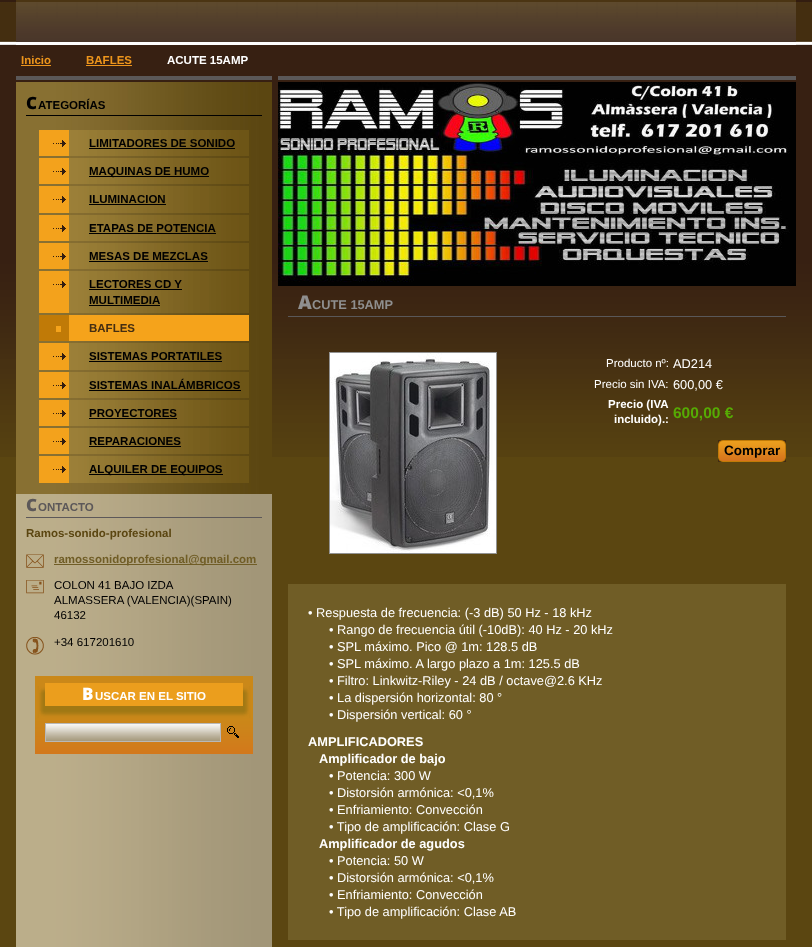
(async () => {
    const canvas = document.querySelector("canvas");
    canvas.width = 812;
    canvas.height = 947;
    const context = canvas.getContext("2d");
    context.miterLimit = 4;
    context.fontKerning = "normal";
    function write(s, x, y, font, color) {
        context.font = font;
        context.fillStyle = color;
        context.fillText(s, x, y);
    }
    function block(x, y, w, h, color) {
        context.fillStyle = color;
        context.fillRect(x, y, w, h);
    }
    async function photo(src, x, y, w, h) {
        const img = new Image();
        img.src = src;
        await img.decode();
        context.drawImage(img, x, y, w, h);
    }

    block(0, 0, 812, 947, "rgb(91, 70, 17)");
    await photo("media/1.png", 0, 0, 812, 457);
    await photo("media/2.png", 16, 494, 256, 453);
    await photo("media/3.png", 16, 0, 780, 42);
    block(16, 44, 780, 1, "rgb(255, 255, 255)");
    block(16, 45, 780, 1, "rgb(55, 32, 18)");
    write("Inicio", 21, 64, "bold 11.5px Liberation Sans", "rgb(237, 149, 28)");
    block(21, 65, 30, 1, "rgb(237, 149, 28)");
    write("BAFLES", 86, 64, "bold 11.5px Liberation Sans", "rgb(237, 149, 28)");
    block(86, 65, 46, 1, "rgb(237, 149, 28)");
    write("ACUTE 15AMP", 167, 64, "bold 11.5px Liberation Sans", "rgb(255, 255, 255)");
    await photo("media/4.png", 16, 76, 256, 6);
    await photo("media/5.png", 16, 82, 256, 412);
    block(26, 115, 236, 1, "rgb(0, 0, 0)");
    write("C", 26, 109, "900 17px Noto Sans", "rgb(0, 0, 0)");
    write("ATEGORÍAS", 38, 109, "bold 11.5px Liberation Sans", "rgb(0, 0, 0)");
    await photo("media/6.png", 39, 130, 210, 26);
    await photo("media/7.png", 53, 140, 13, 7);
    write("LIMITADORES DE SONIDO", 89, 147, "bold 11.5px Liberation Sans", "rgb(0, 0, 0)");
    block(89, 148, 146, 1, "rgb(0, 0, 0)");
    await photo("media/6.png", 39, 158, 210, 26);
    await photo("media/7.png", 53, 168, 13, 7);
    block(89, 176, 120, 1, "rgb(0, 0, 0)");
    write("MAQUINAS DE HUMO", 89, 175, "bold 11.5px Liberation Sans", "rgb(0, 0, 0)");
    await photo("media/8.png", 39, 186, 210, 27);
    await photo("media/7.png", 53, 196, 13, 7);
    write("ILUMINACION", 89, 203, "bold 11.5px Liberation Sans", "rgb(0, 0, 0)");
    block(89, 204, 77, 1, "rgb(0, 0, 0)");
    await photo("media/6.png", 39, 215, 210, 26);
    await photo("media/7.png", 53, 225, 13, 7);
    write("ETAPAS DE POTENCIA", 89, 232, "bold 11.5px Liberation Sans", "rgb(0, 0, 0)");
    block(89, 233, 127, 1, "rgb(0, 0, 0)");
    await photo("media/6.png", 39, 243, 210, 26);
    await photo("media/7.png", 53, 253, 13, 7);
    write("MESAS DE MEZCLAS", 89, 260, "bold 11.5px Liberation Sans", "rgb(0, 0, 0)");
    block(89, 261, 119, 1, "rgb(0, 0, 0)");
    await photo("media/9.png", 39, 271, 210, 42);
    await photo("media/7.png", 53, 281, 13, 7);
    write("LECTORES CD Y", 89, 288, "bold 11.5px Liberation Sans", "rgb(0, 0, 0)");
    block(89, 289, 93, 1, "rgb(0, 0, 0)");
    write("MULTIMEDIA", 89, 304, "bold 11.5px Liberation Sans", "rgb(0, 0, 0)");
    block(89, 305, 71, 1, "rgb(0, 0, 0)");
    await photo("media/10.png", 39, 315, 210, 26);
    block(56, 326, 5, 6, "rgb(245, 163, 27)");
    write("BAFLES", 89, 332, "bold 11.5px Liberation Sans", "rgb(68, 46, 18)");
    await photo("media/8.png", 39, 343, 210, 27);
    await photo("media/7.png", 53, 353, 13, 7);
    write("SISTEMAS PORTATILES", 89, 360, "bold 11.5px Liberation Sans", "rgb(0, 0, 0)");
    block(89, 361, 133, 1, "rgb(0, 0, 0)");
    await photo("media/6.png", 39, 372, 210, 26);
    await photo("media/7.png", 53, 382, 13, 7);
    write("SISTEMAS INALÁMBRICOS", 89, 389, "bold 11.5px Liberation Sans", "rgb(0, 0, 0)");
    block(89, 390, 152, 1, "rgb(0, 0, 0)");
    await photo("media/6.png", 39, 400, 210, 26);
    await photo("media/7.png", 53, 410, 13, 7);
    write("PROYECTORES", 89, 417, "bold 11.5px Liberation Sans", "rgb(0, 0, 0)");
    block(89, 418, 88, 1, "rgb(0, 0, 0)");
    await photo("media/6.png", 39, 428, 210, 26);
    await photo("media/7.png", 53, 438, 13, 7);
    write("REPARACIONES", 89, 445, "bold 11.5px Liberation Sans", "rgb(0, 0, 0)");
    block(89, 446, 92, 1, "rgb(0, 0, 0)");
    await photo("media/8.png", 39, 456, 210, 27);
    await photo("media/7.png", 53, 466, 13, 7);
    block(89, 474, 134, 1, "rgb(0, 0, 0)");
    write("ALQUILER DE EQUIPOS", 89, 473, "bold 11.5px Liberation Sans", "rgb(0, 0, 0)");
    block(26, 517, 236, 1, "rgb(92, 88, 89)");
    write("C", 26, 511, "900 17px Noto Sans", "rgb(92, 88, 89)");
    write("ONTACTO", 38, 511, "bold 11.5px Liberation Sans", "rgb(92, 88, 89)");
    write("Ramos-sonido-profesional", 26, 537, "bold 11.5px Liberation Sans", "rgb(91, 70, 17)");
    await photo("media/11.png", 26, 554, 18, 14);
    block(54, 564, 203, 1, "rgb(112, 93, 38)");
    write("ramossonidoprofesional@gmail.com", 54, 563, "bold 11.5px Liberation Sans", "rgb(112, 93, 38)");
    await photo("media/12.png", 26, 580, 18, 14);
    write("COLON 41 BAJO IZDA", 54, 589, "11.5px Liberation Sans", "rgb(0, 0, 0)");
    write("ALMASSERA (VALENCIA)(SPAIN)", 54, 604, "11.5px Liberation Sans", "rgb(0, 0, 0)");
    write("46132", 54, 619, "11.5px Liberation Sans", "rgb(0, 0, 0)");
    await photo("media/13.png", 26, 637, 18, 18);
    write("+34 617201610", 54, 646, "11.5px Liberation Sans", "rgb(0, 0, 0)");
    await photo("media/14.png", 35, 676, 218, 78);
    block(45, 706, 198, 5, "rgb(160, 120, 20)");
    await photo("media/15.png", 35, 686, 218, 32);
    await photo("media/16.png", 39, 686, 210, 7);
    block(45, 683, 198, 23, "rgb(235, 158, 29)");
    write("B", 82, 700, "900 17px Noto Sans", "rgb(255, 255, 255)");
    write("USCAR EN EL SITIO", 95, 700, "bold 11.5px Liberation Sans", "rgb(255, 255, 255)");
    await photo("media/17.png", 39, 711, 210, 7);
    await photo("media/18.png", 46, 724, 174, 17);
    context.strokeStyle = "rgb(184, 184, 184)";
    context.strokeRect(45.5, 723.5, 175, 18);
    await photo("media/19.png", 227, 726, 12, 12);
    block(278, 76, 518, 4, "rgb(91, 88, 88)");
    await photo("media/20.png", 278, 82, 518, 204);
    block(288, 316, 498, 1, "rgb(90, 88, 89)");
    write("A", 298, 309, "900 19px Noto Sans", "rgb(143, 143, 143)");
    write("CUTE 15AMP", 312, 309, "bold 12.8px Liberation Sans", "rgb(143, 143, 143)");
    context.strokeStyle = "rgb(147, 147, 147)";
    context.strokeRect(329.5, 352.5, 167, 201);
    await photo("media/21.png", 330, 353, 166, 200);
    write("Producto nº:", 606, 367, "11.5px Liberation Sans", "rgb(255, 255, 255)");
    write("AD214", 673, 368, "12.8px Liberation Sans", "rgb(255, 255, 255)");
    write("Precio sin IVA:", 594, 388, "11.5px Liberation Sans", "rgb(255, 255, 255)");
    write("600,00 €", 673, 389, "12.8px Liberation Sans", "rgb(255, 255, 255)");
    write("Precio (IVA", 608, 408, "bold 11.5px Liberation Sans", "rgb(255, 255, 255)");
    write("incluido).:", 614, 423, "bold 11.5px Liberation Sans", "rgb(255, 255, 255)");
    write("600,00 €", 673, 418, "bold 15.5px Liberation Sans", "rgb(86, 170, 4)");
    await photo("media/22.png", 723, 440, 58, 22);
    await photo("media/23.png", 718, 440, 5, 22);
    write("Comprar", 724, 455, "bold 13.5px Liberation Sans", "rgb(0, 0, 0)");
    await photo("media/24.png", 781, 440, 5, 22);
    block(288, 584, 498, 356, "rgb(112, 93, 38)");
    write("• Respuesta de frecuencia: (-3 dB) 50 Hz - 18 kHz", 308, 617, "12.8px Liberation Sans", "rgb(255, 255, 255)");
    write("• Rango de frecuencia útil (-10dB): 40 Hz - 20 kHz", 329, 634, "12.8px Liberation Sans", "rgb(255, 255, 255)");
    write("• SPL máximo. Pico @ 1m: 128.5 dB", 329, 651, "12.8px Liberation Sans", "rgb(255, 255, 255)");
    write("• SPL máximo. A largo plazo a 1m: 125.5 dB", 329, 668, "12.8px Liberation Sans", "rgb(255, 255, 255)");
    write("• Filtro: Linkwitz-Riley - 24 dB / octave@2.6 KHz", 329, 685, "12.8px Liberation Sans", "rgb(255, 255, 255)");
    write("• La dispersión horizontal: 80 °", 329, 702, "12.8px Liberation Sans", "rgb(255, 255, 255)");
    write("• Dispersión vertical: 60 °", 329, 719, "12.8px Liberation Sans", "rgb(255, 255, 255)");
    write("AMPLIFICADORES", 308, 746, "bold 12.8px Liberation Sans", "rgb(255, 255, 255)");
    write("Amplificador de bajo", 319, 763, "bold 12.8px Liberation Sans", "rgb(255, 255, 255)");
    write("• Potencia: 300 W", 329, 780, "12.8px Liberation Sans", "rgb(255, 255, 255)");
    write("• Distorsión armónica: <0,1%", 329, 797, "12.8px Liberation Sans", "rgb(255, 255, 255)");
    write("• Enfriamiento: Convección", 329, 814, "12.8px Liberation Sans", "rgb(255, 255, 255)");
    write("• Tipo de amplificación: Clase G", 329, 831, "12.8px Liberation Sans", "rgb(255, 255, 255)");
    write("Amplificador de agudos", 319, 848, "bold 12.8px Liberation Sans", "rgb(255, 255, 255)");
    write("• Potencia: 50 W", 329, 865, "12.8px Liberation Sans", "rgb(255, 255, 255)");
    write("• Distorsión armónica: <0,1%", 329, 882, "12.8px Liberation Sans", "rgb(255, 255, 255)");
    write("• Enfriamiento: Convección", 329, 899, "12.8px Liberation Sans", "rgb(255, 255, 255)");
    write("• Tipo de amplificación: Clase AB", 329, 916, "12.8px Liberation Sans", "rgb(255, 255, 255)");
})();
